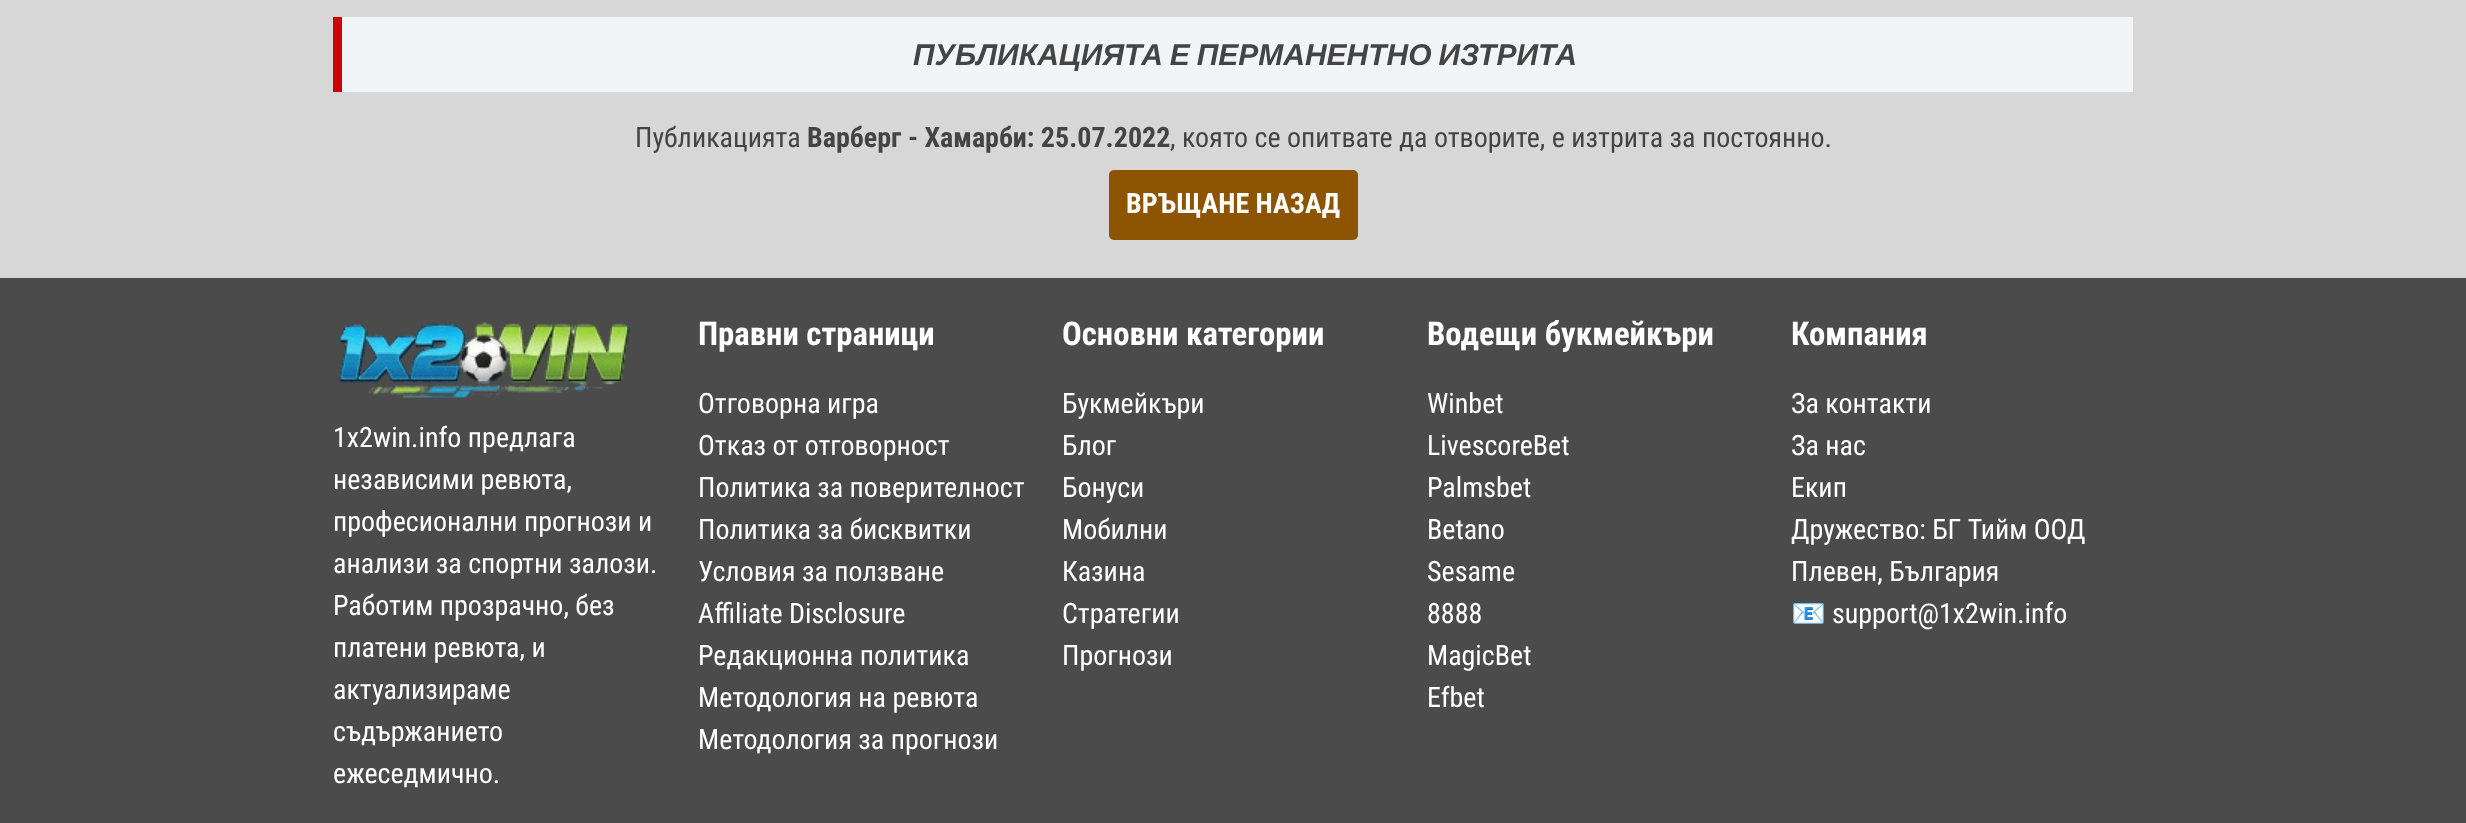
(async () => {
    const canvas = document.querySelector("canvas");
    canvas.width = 2466;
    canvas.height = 823;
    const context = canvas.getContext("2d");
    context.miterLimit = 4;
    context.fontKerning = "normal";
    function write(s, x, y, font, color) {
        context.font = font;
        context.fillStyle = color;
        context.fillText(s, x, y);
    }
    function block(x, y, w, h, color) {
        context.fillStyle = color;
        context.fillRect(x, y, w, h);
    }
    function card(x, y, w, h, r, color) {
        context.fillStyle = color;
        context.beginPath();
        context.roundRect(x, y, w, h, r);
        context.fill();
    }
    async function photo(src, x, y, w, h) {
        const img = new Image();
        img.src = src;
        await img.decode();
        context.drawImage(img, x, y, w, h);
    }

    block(0, 0, 2466, 823, "rgb(215, 215, 215)");
    block(342, 17, 1791, 75, "rgb(242, 245, 247)");
    block(333, 17, 9, 75, "rgb(205, 4, 4)");
    context.wordSpacing = "-1.5px";
    write("ПУБЛИКАЦИЯТА Е ПЕРМАНЕНТНО ИЗТРИТА", 913, 65, "italic bold 30px Liberation Sans", "rgb(68, 68, 68)");
    context.wordSpacing = "0px";
    write("Публикацията", 635, 147, "28px Roboto Condensed", "rgb(68, 68, 68)");
    write("Варберг - Хамарби: 25.07.2022", 807, 147, "bold 28px Roboto Condensed", "rgb(68, 68, 68)");
    write(", която се опитвате да отворите, е изтрита за постоянно.", 1170, 147, "28px Roboto Condensed", "rgb(68, 68, 68)");
    card(1109, 170, 249, 70, 5, "rgb(140, 84, 3)");
    write("ВРЪЩАНЕ НАЗАД", 1126, 213, "bold 28px Roboto Condensed", "rgb(255, 255, 255)");
    block(0, 278, 2466, 545, "rgb(75, 75, 75)");
    await photo("media/1.png", 338, 322, 293, 76);
    write("1x2win.info предлага", 333, 447, "28px Roboto Condensed", "rgb(255, 255, 255)");
    write("независими ревюта,", 333, 489, "28px Roboto Condensed", "rgb(255, 255, 255)");
    write("професионални прогнози и", 333, 531, "28px Roboto Condensed", "rgb(255, 255, 255)");
    write("анализи за спортни залози.", 333, 573, "28px Roboto Condensed", "rgb(255, 255, 255)");
    write("Работим прозрачно, без", 333, 615, "28px Roboto Condensed", "rgb(255, 255, 255)");
    write("платени ревюта, и", 333, 657, "28px Roboto Condensed", "rgb(255, 255, 255)");
    write("актуализираме", 333, 699, "28px Roboto Condensed", "rgb(255, 255, 255)");
    write("съдържанието", 333, 741, "28px Roboto Condensed", "rgb(255, 255, 255)");
    write("ежеседмично.", 333, 783, "28px Roboto Condensed", "rgb(255, 255, 255)");
    write("Правни страници", 698, 345, "bold 32.75px Roboto Condensed", "rgb(255, 255, 255)");
    write("Отговорна игра", 698, 413, "28px Roboto Condensed", "rgb(255, 255, 255)");
    write("Отказ от отговорност", 698, 455, "28px Roboto Condensed", "rgb(255, 255, 255)");
    write("Политика за поверителност", 698, 497, "28px Roboto Condensed", "rgb(255, 255, 255)");
    write("Политика за бисквитки", 698, 539, "28px Roboto Condensed", "rgb(255, 255, 255)");
    write("Условия за ползване", 698, 581, "28px Roboto Condensed", "rgb(255, 255, 255)");
    write("Affiliate Disclosure", 698, 623, "28px Roboto Condensed", "rgb(255, 255, 255)");
    write("Редакционна политика", 698, 665, "28px Roboto Condensed", "rgb(255, 255, 255)");
    write("Методология на ревюта", 698, 707, "28px Roboto Condensed", "rgb(255, 255, 255)");
    write("Методология за прогнози", 698, 749, "28px Roboto Condensed", "rgb(255, 255, 255)");
    write("Основни категории", 1062, 345, "bold 32.75px Roboto Condensed", "rgb(255, 255, 255)");
    write("Букмейкъри", 1062, 413, "28px Roboto Condensed", "rgb(255, 255, 255)");
    write("Блог", 1062, 455, "28px Roboto Condensed", "rgb(255, 255, 255)");
    write("Бонуси", 1062, 497, "28px Roboto Condensed", "rgb(255, 255, 255)");
    write("Мобилни", 1062, 539, "28px Roboto Condensed", "rgb(255, 255, 255)");
    write("Казина", 1062, 581, "28px Roboto Condensed", "rgb(255, 255, 255)");
    write("Стратегии", 1062, 623, "28px Roboto Condensed", "rgb(255, 255, 255)");
    write("Прогнози", 1062, 665, "28px Roboto Condensed", "rgb(255, 255, 255)");
    write("Водещи букмейкъри", 1427, 345, "bold 32.75px Roboto Condensed", "rgb(255, 255, 255)");
    write("Winbet", 1427, 413, "28px Roboto Condensed", "rgb(255, 255, 255)");
    write("LivescoreBet", 1427, 455, "28px Roboto Condensed", "rgb(255, 255, 255)");
    write("Palmsbet", 1427, 497, "28px Roboto Condensed", "rgb(255, 255, 255)");
    write("Betano", 1427, 539, "28px Roboto Condensed", "rgb(255, 255, 255)");
    write("Sesame", 1427, 581, "28px Roboto Condensed", "rgb(255, 255, 255)");
    write("8888", 1427, 623, "28px Roboto Condensed", "rgb(255, 255, 255)");
    write("MagicBet", 1427, 665, "28px Roboto Condensed", "rgb(255, 255, 255)");
    write("Efbet", 1427, 707, "28px Roboto Condensed", "rgb(255, 255, 255)");
    write("Компания", 1791, 345, "bold 32.75px Roboto Condensed", "rgb(255, 255, 255)");
    write("За контакти", 1791, 413, "28px Roboto Condensed", "rgb(255, 255, 255)");
    write("За нас", 1791, 455, "28px Roboto Condensed", "rgb(255, 255, 255)");
    write("Екип", 1791, 497, "28px Roboto Condensed", "rgb(255, 255, 255)");
    write("Дружество: БГ Тийм ООД", 1791, 539, "28px Roboto Condensed", "rgb(255, 255, 255)");
    write("Плевен, България", 1791, 581, "28px Roboto Condensed", "rgb(255, 255, 255)");
    write("📧", 1791, 623, "28px Noto Color Emoji", "rgb(255, 255, 255)");
    write("support@1x2win.info", 1832, 623, "28px Roboto Condensed", "rgb(255, 255, 255)");
})();
